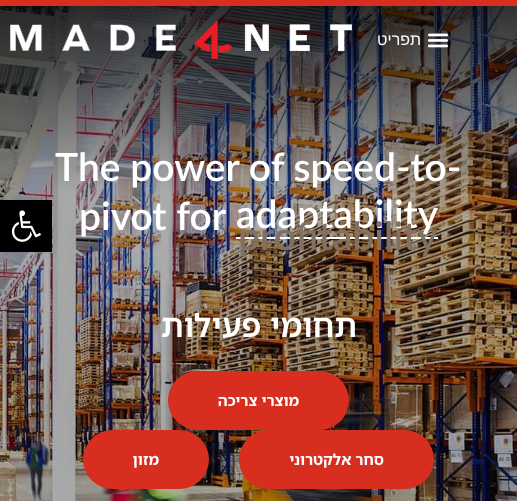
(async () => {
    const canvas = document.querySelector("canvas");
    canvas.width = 517;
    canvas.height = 501;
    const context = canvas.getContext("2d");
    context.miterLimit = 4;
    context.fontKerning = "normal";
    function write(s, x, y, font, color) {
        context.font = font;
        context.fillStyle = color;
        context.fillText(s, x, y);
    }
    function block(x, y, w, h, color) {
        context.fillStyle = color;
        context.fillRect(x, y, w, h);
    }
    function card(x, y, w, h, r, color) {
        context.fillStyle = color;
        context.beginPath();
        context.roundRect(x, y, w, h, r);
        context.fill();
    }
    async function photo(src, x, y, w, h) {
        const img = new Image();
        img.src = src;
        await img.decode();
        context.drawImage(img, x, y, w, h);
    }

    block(0, 0, 517, 501, "rgb(255, 255, 255)");
    block(0, 0, 517, 6, "rgb(216, 46, 32)");
    await photo("media/4.png", 0, 6, 517, 495);
    await photo("media/1.png", 10, 20, 342, 39);
    context.direction = "rtl";
    write("תפריט", 421, 45, "16px Liberation Sans", "rgb(255, 255, 255)");
    await photo("media/2.png", 427, 33, 22, 15);
    context.fillStyle = "rgba(0, 0, 0, 0.1)";
    context.filter = "blur(5px)";
    context.beginPath();
    context.rect(0, 200, 52, 52);
    context.fill();
    context.filter = "none";
    block(0, 200, 52, 52, "rgb(0, 0, 0)");
    await photo("media/3.png", 11, 210, 30, 32);
    context.direction = "ltr";
    write("The power of speed-to-", 55, 181, "600 39px Lato", "rgb(255, 255, 255)");
    write("pivot for", 79, 230, "600 39px Lato", "rgb(255, 255, 255)");
    block(236, 237, 202, 2, "rgb(255, 255, 255)");
    write("adaptability", 236, 228, "600 39px Lato", "rgb(255, 255, 255)");
    write("profitability", 238, 250, "600 39px Lato", "rgb(130, 112, 97)");
    context.direction = "rtl";
    write("תחומי פעילות", 357, 337, "600 32px Noto Sans Hebrew", "rgb(255, 255, 255)");
    card(168, 371, 181, 59, 29.5, "rgb(216, 46, 32)");
    write("מוצרי צריכה", 299, 406, "bold 15px Noto Sans Hebrew", "rgb(255, 255, 255)");
    card(83, 430, 126, 59, 29.5, "rgb(216, 46, 32)");
    write("מזון", 159, 465, "bold 15px Noto Sans Hebrew", "rgb(255, 255, 255)");
    card(239, 430, 195, 59, 29.5, "rgb(216, 46, 32)");
    write("סחר אלקטרוני", 384, 465, "bold 15px Noto Sans Hebrew", "rgb(255, 255, 255)");
})();
